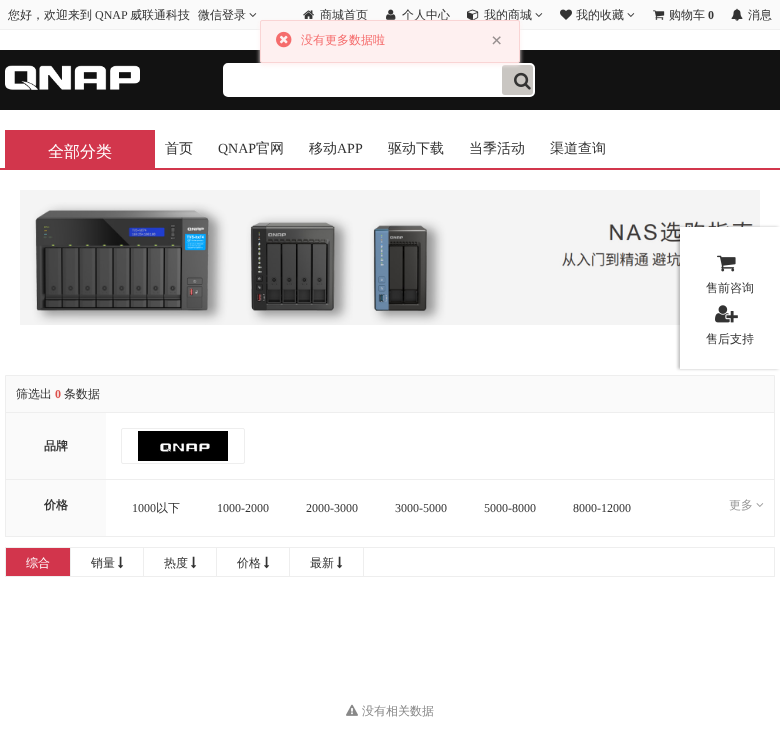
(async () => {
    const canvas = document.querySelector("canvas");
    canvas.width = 780;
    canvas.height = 756;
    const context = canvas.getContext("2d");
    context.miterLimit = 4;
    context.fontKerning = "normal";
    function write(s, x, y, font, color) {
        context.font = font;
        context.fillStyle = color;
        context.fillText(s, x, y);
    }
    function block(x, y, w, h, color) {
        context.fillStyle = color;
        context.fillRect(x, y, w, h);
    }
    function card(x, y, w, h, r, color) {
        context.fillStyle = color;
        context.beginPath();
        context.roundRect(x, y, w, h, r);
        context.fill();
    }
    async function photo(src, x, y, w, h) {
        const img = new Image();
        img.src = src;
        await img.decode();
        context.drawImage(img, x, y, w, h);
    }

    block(0, 0, 780, 756, "rgb(255, 255, 255)");
    block(0, 0, 780, 29, "rgb(250, 250, 250)");
    block(0, 29, 780, 1, "rgb(240, 240, 240)");
    write("您好，欢迎来到", 8, 19, "500 12px WenQuanYi Zen Hei", "rgb(51, 51, 51)");
    write("QNAP", 95, 19, "12px Liberation Serif", "rgb(51, 51, 51)");
    write("威联通科技", 130, 19, "500 12px WenQuanYi Zen Hei", "rgb(51, 51, 51)");
    write("微信登录", 198, 19, "500 12px WenQuanYi Zen Hei", "rgb(51, 51, 51)");
    await photo("media/1.png", 249, 13, 8, 4);
    await photo("media/2.png", 303, 10, 11, 9);
    write("商城首页", 320, 19, "500 12px WenQuanYi Zen Hei", "rgb(51, 51, 51)");
    await photo("media/3.png", 386, 9, 10, 11);
    write("个人中心", 402, 19, "500 12px WenQuanYi Zen Hei", "rgb(51, 51, 51)");
    await photo("media/4.png", 467, 9, 12, 11);
    write("我的商城", 484, 19, "500 12px WenQuanYi Zen Hei", "rgb(51, 51, 51)");
    await photo("media/1.png", 535, 13, 8, 4);
    await photo("media/5.png", 560, 9, 12, 11);
    write("我的收藏", 576, 19, "500 12px WenQuanYi Zen Hei", "rgb(51, 51, 51)");
    await photo("media/1.png", 627, 13, 8, 4);
    await photo("media/6.png", 653, 10, 12, 10);
    write("购物车", 669, 19, "500 12px WenQuanYi Zen Hei", "rgb(51, 51, 51)");
    write("0", 708, 19, "bold 12px Liberation Serif", "rgb(51, 51, 51)");
    await photo("media/7.png", 731, 8, 12, 13);
    write("消息", 748, 19, "500 12px WenQuanYi Zen Hei", "rgb(51, 51, 51)");
    block(0, 50, 780, 60, "rgb(18, 18, 18)");
    context.fillStyle = "rgb(255, 255, 255)";
    context.beginPath();
    context.roundRect(224, 64, 310, 32, 4);
    context.fill();
    context.strokeStyle = "rgb(255, 255, 255)";
    context.lineWidth = 2;
    context.stroke();
    card(502, 65, 31, 30, 3, "rgb(201, 198, 194)");
    context.fillStyle = "rgb(254, 240, 240)";
    context.filter = "blur(2px)";
    context.beginPath();
    context.roundRect(260, 22, 260, 43, 2);
    context.fill();
    context.filter = "none";
    context.beginPath();
    context.roundRect(260.5, 20.5, 259, 42, 1.5);
    context.fill();
    context.strokeStyle = "rgb(249, 212, 212)";
    context.lineWidth = 1;
    context.stroke();
    await photo("media/8.png", 276, 31, 16, 17);
    write("没有更多数据啦", 301, 44, "500 12px WenQuanYi Zen Hei", "rgb(245, 108, 108)");
    write("×", 491, 47, "bold 20px Liberation Serif", "rgb(152, 144, 144)");
    await photo("media/9.png", 5, 65, 135, 25);
    await photo("media/10.png", 514, 72, 17, 18);
    block(0, 168, 780, 2, "rgb(210, 54, 76)");
    block(5, 130, 150, 38, "rgb(210, 54, 76)");
    write("全部分类", 48, 157, "500 16px WenQuanYi Zen Hei", "rgb(255, 255, 255)");
    write("首页", 165, 153, "500 14px WenQuanYi Zen Hei", "rgb(51, 51, 51)");
    write("QNAP", 218, 153, "14px Liberation Serif", "rgb(51, 51, 51)");
    write("官网", 256, 153, "500 14px WenQuanYi Zen Hei", "rgb(51, 51, 51)");
    write("移动", 309, 153, "500 14px WenQuanYi Zen Hei", "rgb(51, 51, 51)");
    write("APP", 337, 153, "14px Liberation Serif", "rgb(51, 51, 51)");
    write("驱动下载", 388, 153, "500 14px WenQuanYi Zen Hei", "rgb(51, 51, 51)");
    write("当季活动", 469, 153, "500 14px WenQuanYi Zen Hei", "rgb(51, 51, 51)");
    write("渠道查询", 550, 153, "500 14px WenQuanYi Zen Hei", "rgb(51, 51, 51)");
    await photo("media/11.png", 20, 190, 740, 135);
    context.fillStyle = "rgba(0, 0, 0, 0.25)";
    context.filter = "blur(1.5px)";
    context.beginPath();
    context.rect(678, 227, 100, 142);
    context.fill();
    context.filter = "none";
    block(680, 227, 100, 142, "rgb(255, 255, 255)");
    await photo("media/12.png", 717, 255, 19, 17);
    write("售前咨询", 706, 292, "500 12px WenQuanYi Zen Hei", "rgb(51, 51, 51)");
    await photo("media/13.png", 715, 305, 23, 18);
    write("售后支持", 706, 343, "500 12px WenQuanYi Zen Hei", "rgb(51, 51, 51)");
    context.fillStyle = "rgb(250, 250, 250)";
    context.beginPath();
    context.rect(5.5, 375.5, 769, 37);
    context.fill();
    context.strokeStyle = "rgb(238, 238, 238)";
    context.stroke();
    write("筛选出", 16, 398, "500 12px WenQuanYi Zen Hei", "rgb(51, 51, 51)");
    write("0", 55, 398, "bold 12px Liberation Serif", "rgb(221, 81, 76)");
    write("条数据", 64, 398, "500 12px WenQuanYi Zen Hei", "rgb(51, 51, 51)");
    block(6, 413, 100, 66, "rgb(250, 250, 250)");
    context.strokeRect(5.5, 412.5, 769, 67);
    write("品牌", 44, 450, "bold 12px WenQuanYi Zen Hei", "rgb(51, 51, 51)");
    context.beginPath();
    context.roundRect(121.5, 428.5, 123, 35, 1.5);
    context.stroke();
    await photo("media/14.png", 138, 431, 90, 30);
    block(6, 480, 100, 56, "rgb(250, 250, 250)");
    context.strokeRect(5.5, 479.5, 769, 57);
    write("价格", 44, 509, "bold 12px WenQuanYi Zen Hei", "rgb(51, 51, 51)");
    write("1000", 132, 512, "12px Liberation Serif", "rgb(51, 51, 51)");
    write("以下", 156, 512, "500 12px WenQuanYi Zen Hei", "rgb(51, 51, 51)");
    write("1000-2000", 217, 512, "12px Liberation Serif", "rgb(51, 51, 51)");
    write("2000-3000", 306, 512, "12px Liberation Serif", "rgb(51, 51, 51)");
    write("3000-5000", 395, 512, "12px Liberation Serif", "rgb(51, 51, 51)");
    write("5000-8000", 484, 512, "12px Liberation Serif", "rgb(51, 51, 51)");
    write("8000-12000", 573, 512, "12px Liberation Serif", "rgb(51, 51, 51)");
    write("更多", 729, 509, "500 12px WenQuanYi Zen Hei", "rgb(153, 153, 153)");
    await photo("media/15.png", 756, 503, 8, 4);
    context.strokeRect(5.5, 547.5, 769, 29);
    block(6, 548, 64, 28, "rgb(210, 53, 76)");
    block(70, 548, 1, 28, "rgb(238, 238, 238)");
    write("综合", 26, 567, "500 12px WenQuanYi Zen Hei", "rgb(255, 255, 255)");
    block(143, 548, 1, 28, "rgb(238, 238, 238)");
    write("销量", 91, 567, "500 12px WenQuanYi Zen Hei", "rgb(51, 51, 51)");
    await photo("media/16.png", 118, 556, 6, 13);
    block(216, 548, 1, 28, "rgb(238, 238, 238)");
    write("热度", 164, 567, "500 12px WenQuanYi Zen Hei", "rgb(51, 51, 51)");
    await photo("media/16.png", 191, 556, 6, 13);
    block(289, 548, 1, 28, "rgb(238, 238, 238)");
    write("价格", 237, 567, "500 12px WenQuanYi Zen Hei", "rgb(51, 51, 51)");
    await photo("media/16.png", 264, 556, 6, 13);
    block(363, 548, 1, 28, "rgb(238, 238, 238)");
    write("最新", 310, 567, "500 12px WenQuanYi Zen Hei", "rgb(51, 51, 51)");
    await photo("media/16.png", 337, 556, 6, 13);
    await photo("media/17.png", 346, 704, 12, 12);
    write("没有相关数据", 362, 715, "500 12px WenQuanYi Zen Hei", "rgb(136, 136, 136)");
})();
